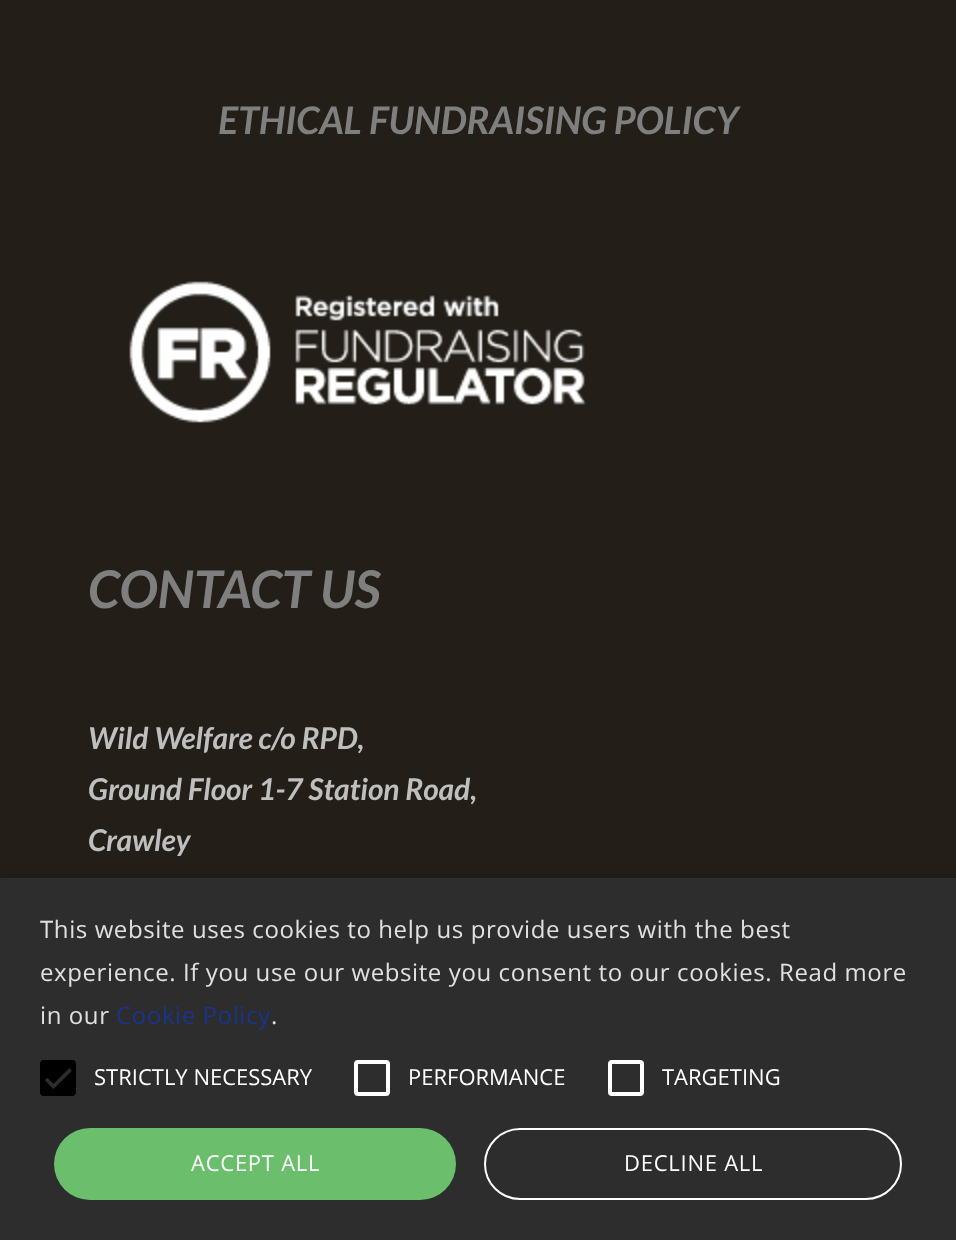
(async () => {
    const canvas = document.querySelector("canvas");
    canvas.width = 956;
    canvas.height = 1240;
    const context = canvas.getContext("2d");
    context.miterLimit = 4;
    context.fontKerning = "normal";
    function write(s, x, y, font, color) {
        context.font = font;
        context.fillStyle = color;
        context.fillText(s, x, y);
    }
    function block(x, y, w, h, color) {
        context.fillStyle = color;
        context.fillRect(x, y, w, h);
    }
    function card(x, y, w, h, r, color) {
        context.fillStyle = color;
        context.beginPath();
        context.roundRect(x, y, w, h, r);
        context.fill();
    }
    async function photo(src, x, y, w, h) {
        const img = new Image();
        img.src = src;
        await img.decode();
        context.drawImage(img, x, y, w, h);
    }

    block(0, 0, 956, 1240, "rgb(35, 30, 24)");
    write("ETHICAL FUNDRAISING POLICY", 218, 134, "italic bold 38px Lato", "rgb(127, 127, 127)");
    await photo("media/1.png", 129, 281, 458, 142);
    write("CONTACT US", 88, 608, "italic bold 52px Lato", "rgb(127, 127, 127)");
    write("Wild Welfare c/o RPD,", 88, 749, "italic bold 30px Lato", "rgb(191, 191, 191)");
    write("Ground Floor 1-7 Station Road,", 88, 800, "italic bold 30px Lato", "rgb(191, 191, 191)");
    write("Crawley", 88, 851, "italic bold 30px Lato", "rgb(191, 191, 191)");
    context.fillStyle = "rgba(0, 0, 0, 0.35)";
    context.filter = "blur(8px)";
    context.beginPath();
    context.rect(2, 882, 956, 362);
    context.fill();
    context.filter = "none";
    block(0, 878, 956, 362, "rgb(45, 45, 45)");
    context.letterSpacing = "0.6px";
    write("This website uses cookies to help us provide users with the best", 40, 938, "24px Open Sans", "rgb(224, 224, 224)");
    write("experience. If you use our website you consent to our cookies. Read more", 40, 981, "24px Open Sans", "rgb(224, 224, 224)");
    write("in our", 40, 1024, "24px Open Sans", "rgb(224, 224, 224)");
    write("Cookie Policy", 116, 1024, "24px Open Sans", "rgb(27, 52, 139)");
    write(".", 271, 1024, "24px Open Sans", "rgb(224, 224, 224)");
    card(40, 1060, 36, 36, 4, "rgb(0, 0, 0)");
    context.beginPath();
    context.moveTo(46, 1079);
    context.lineTo(53.5, 1086.5);
    context.lineTo(70.5, 1069.5);
    context.strokeStyle = "rgb(45, 45, 45)";
    context.lineWidth = 3.6;
    context.stroke();
    context.letterSpacing = "0px";
    write("STRICTLY NECESSARY", 94, 1085, "22px Open Sans", "rgb(255, 255, 255)");
    context.beginPath();
    context.roundRect(356, 1062, 32, 32, 2);
    context.strokeStyle = "rgb(255, 255, 255)";
    context.lineWidth = 4;
    context.stroke();
    write("PERFORMANCE", 408, 1085, "22px Open Sans", "rgb(255, 255, 255)");
    context.beginPath();
    context.roundRect(610, 1062, 32, 32, 2);
    context.stroke();
    write("TARGETING", 662, 1085, "22px Open Sans", "rgb(255, 255, 255)");
    card(54, 1128, 402, 72, 36, "rgb(107, 190, 107)");
    context.letterSpacing = "0.75px";
    write("ACCEPT ALL", 191, 1171, "22px Open Sans", "rgb(255, 255, 255)");
    context.beginPath();
    context.roundRect(485, 1129, 416, 70, 35);
    context.lineWidth = 2;
    context.stroke();
    write("DECLINE ALL", 624, 1171, "22px Open Sans", "rgb(255, 255, 255)");
})();
